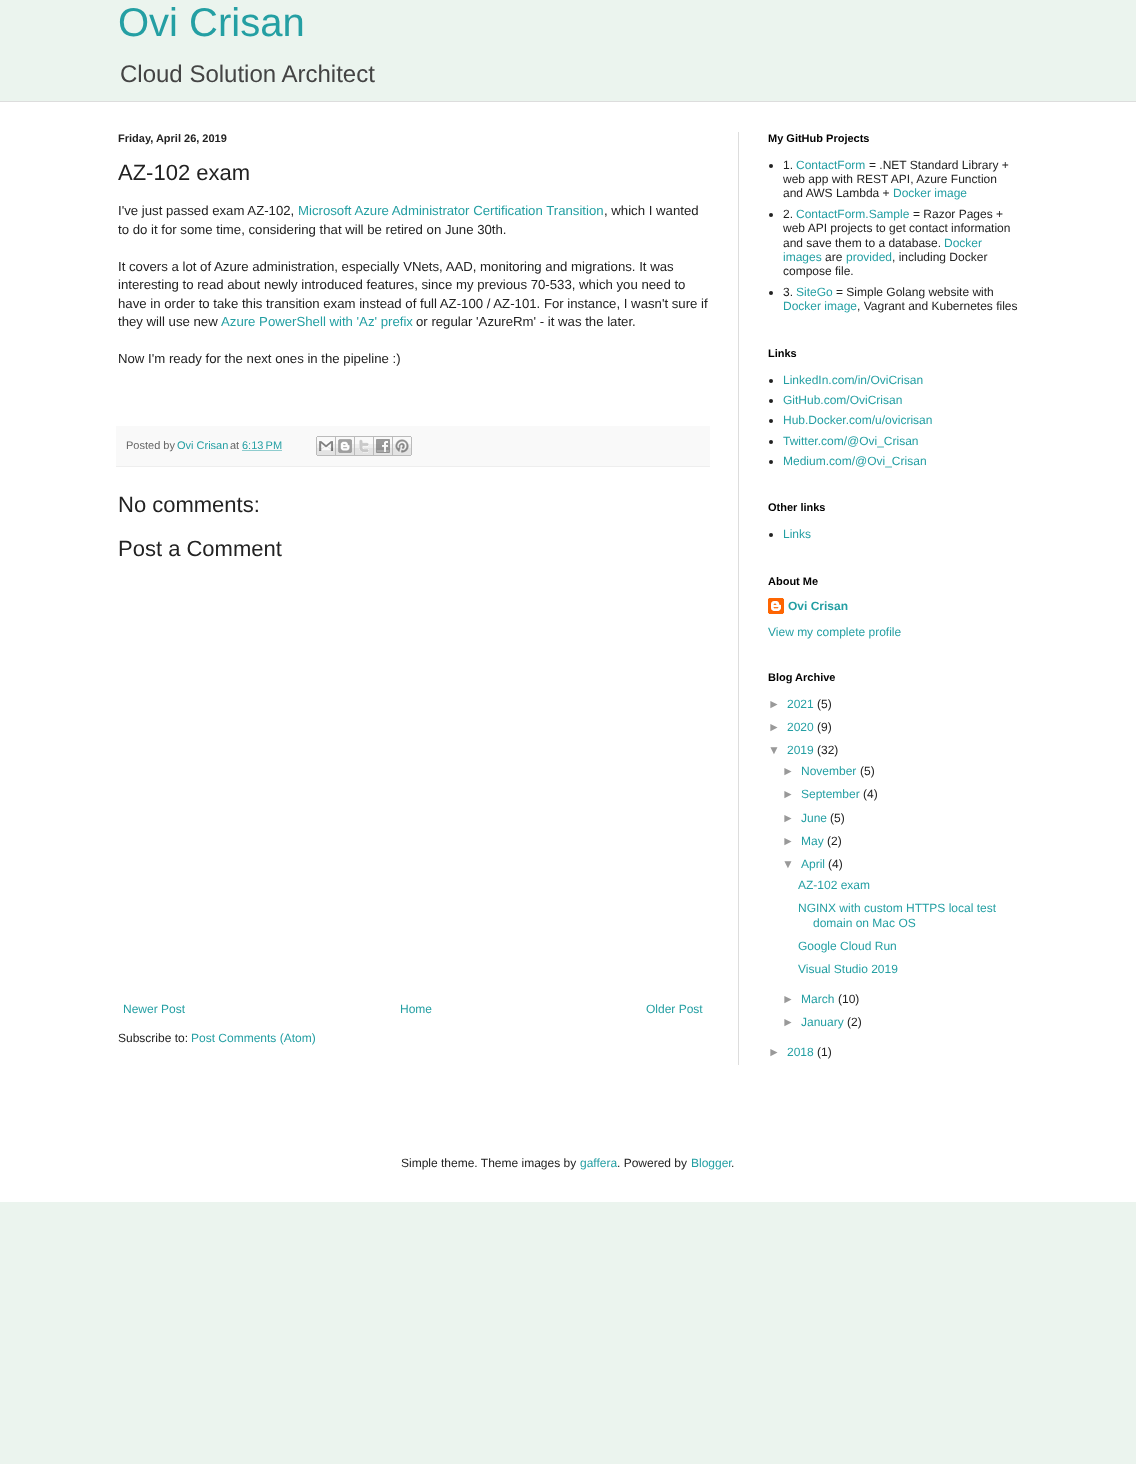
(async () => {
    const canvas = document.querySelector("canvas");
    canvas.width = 1136;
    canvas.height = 1464;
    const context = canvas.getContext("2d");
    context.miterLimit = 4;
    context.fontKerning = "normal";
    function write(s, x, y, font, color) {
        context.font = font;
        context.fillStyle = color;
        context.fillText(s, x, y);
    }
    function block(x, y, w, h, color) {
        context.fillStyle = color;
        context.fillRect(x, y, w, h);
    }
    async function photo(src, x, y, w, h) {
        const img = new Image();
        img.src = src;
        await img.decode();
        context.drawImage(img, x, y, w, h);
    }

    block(0, 0, 1136, 1464, "rgb(235, 244, 238)");
    write("Ovi Crisan", 118, 36, "40px Liberation Sans", "rgb(36, 159, 163)");
    write("Cloud Solution Architect", 120, 82, "24px Liberation Sans", "rgb(68, 68, 68)");
    block(0, 102, 1136, 1100, "rgb(255, 255, 255)");
    block(0, 101, 1136, 1, "rgb(221, 221, 221)");
    block(738, 132, 1, 933, "rgb(221, 221, 221)");
    write("Friday, April 26, 2019", 118, 142, "bold 11px Liberation Sans", "rgb(34, 34, 34)");
    write("AZ-102 exam", 118, 180, "22px Liberation Sans", "rgb(34, 34, 34)");
    write("I've just passed exam AZ-102,", 118, 215, "13.2px Liberation Sans", "rgb(34, 34, 34)");
    write("Microsoft Azure Administrator Certification Transition", 298, 215, "13.2px Liberation Sans", "rgb(36, 159, 163)");
    write(", which I wanted", 604, 215, "13.2px Liberation Sans", "rgb(34, 34, 34)");
    write("to do it for some time, considering that will be retired on June 30th.", 118, 234, "13.2px Liberation Sans", "rgb(34, 34, 34)");
    write("It covers a lot of Azure administration, especially VNets, AAD, monitoring and migrations. It was", 118, 271, "13.2px Liberation Sans", "rgb(34, 34, 34)");
    write("interesting to read about newly introduced features, since my previous 70-533, which you need to", 118, 289, "13.2px Liberation Sans", "rgb(34, 34, 34)");
    write("have in order to take this transition exam instead of full AZ-100 / AZ-101. For instance, I wasn't sure if", 118, 308, "13.2px Liberation Sans", "rgb(34, 34, 34)");
    write("they will use new", 118, 326, "13.2px Liberation Sans", "rgb(34, 34, 34)");
    write("Azure PowerShell with 'Az' prefix", 221, 326, "13.2px Liberation Sans", "rgb(36, 159, 163)");
    write("or regular 'AzureRm' - it was the later.", 416, 326, "13.2px Liberation Sans", "rgb(34, 34, 34)");
    write("Now I'm ready for the next ones in the pipeline :)", 118, 363, "13.2px Liberation Sans", "rgb(34, 34, 34)");
    block(116, 426, 594, 40, "rgb(249, 249, 249)");
    block(116, 466, 594, 1, "rgb(238, 238, 238)");
    write("Posted by", 126, 449, "11px Liberation Sans", "rgb(102, 102, 102)");
    write("Ovi Crisan", 177, 449, "11px Liberation Sans", "rgb(36, 159, 163)");
    write("at", 230, 449, "11px Liberation Sans", "rgb(102, 102, 102)");
    write("6:13 PM", 242, 449, "11px Liberation Sans", "rgb(36, 159, 163)");
    context.beginPath();
    context.moveTo(242.5, 450.5);
    context.lineTo(282, 450.5);
    context.strokeStyle = "rgb(36, 159, 163)";
    context.setLineDash([1, 1]);
    context.stroke();
    await photo("media/1.png", 316, 436, 20, 20);
    await photo("media/2.png", 336, 436, 19, 20);
    await photo("media/3.png", 355, 436, 19, 20);
    await photo("media/4.png", 374, 436, 19, 20);
    await photo("media/5.png", 393, 436, 19, 20);
    write("No comments:", 118, 512, "22px Liberation Sans", "rgb(34, 34, 34)");
    write("Post a Comment", 118, 556, "22px Liberation Sans", "rgb(34, 34, 34)");
    write("Newer Post", 123, 1013, "12px Liberation Sans", "rgb(36, 159, 163)");
    write("Home", 400, 1013, "12px Liberation Sans", "rgb(36, 159, 163)");
    write("Older Post", 646, 1013, "12px Liberation Sans", "rgb(36, 159, 163)");
    write("Subscribe to:", 118, 1042, "12px Liberation Sans", "rgb(34, 34, 34)");
    write("Post Comments (Atom)", 191, 1042, "12px Liberation Sans", "rgb(36, 159, 163)");
    write("My GitHub Projects", 768, 142, "bold 11px Liberation Sans", "rgb(0, 0, 0)");
    context.fillStyle = "rgb(34, 34, 34)";
    context.beginPath();
    context.arc(771, 166, 2, 0, Math.PI * 2);
    context.fill();
    write("1.", 783, 169, "12px Liberation Sans", "rgb(34, 34, 34)");
    write("ContactForm", 796, 169, "12px Liberation Sans", "rgb(36, 159, 163)");
    write("= .NET Standard Library +", 869, 169, "12px Liberation Sans", "rgb(34, 34, 34)");
    write("web app with REST API, Azure Function", 783, 183, "12px Liberation Sans", "rgb(34, 34, 34)");
    write("and AWS Lambda +", 783, 197, "12px Liberation Sans", "rgb(34, 34, 34)");
    write("Docker image", 893, 197, "12px Liberation Sans", "rgb(36, 159, 163)");
    context.fillStyle = "rgb(34, 34, 34)";
    context.beginPath();
    context.arc(771, 215, 2, 0, Math.PI * 2);
    context.fill();
    write("2.", 783, 218, "12px Liberation Sans", "rgb(34, 34, 34)");
    write("ContactForm.Sample", 796, 218, "12px Liberation Sans", "rgb(36, 159, 163)");
    write("= Razor Pages +", 913, 218, "12px Liberation Sans", "rgb(34, 34, 34)");
    write("web API projects to get contact information", 783, 232, "12px Liberation Sans", "rgb(34, 34, 34)");
    write("and save them to a database.", 783, 247, "12px Liberation Sans", "rgb(34, 34, 34)");
    write("Docker", 944, 247, "12px Liberation Sans", "rgb(36, 159, 163)");
    write("images", 783, 261, "12px Liberation Sans", "rgb(36, 159, 163)");
    write("are", 825, 261, "12px Liberation Sans", "rgb(34, 34, 34)");
    write("provided", 846, 261, "12px Liberation Sans", "rgb(36, 159, 163)");
    write(", including Docker", 892, 261, "12px Liberation Sans", "rgb(34, 34, 34)");
    write("compose file.", 783, 275, "12px Liberation Sans", "rgb(34, 34, 34)");
    context.beginPath();
    context.arc(771, 293, 2, 0, Math.PI * 2);
    context.fill();
    write("3.", 783, 296, "12px Liberation Sans", "rgb(34, 34, 34)");
    write("SiteGo", 796, 296, "12px Liberation Sans", "rgb(36, 159, 163)");
    write("= Simple Golang website with", 836, 296, "12px Liberation Sans", "rgb(34, 34, 34)");
    write("Docker image", 783, 310, "12px Liberation Sans", "rgb(36, 159, 163)");
    write(", Vagrant and Kubernetes files", 857, 310, "12px Liberation Sans", "rgb(34, 34, 34)");
    write("Links", 768, 357, "bold 11px Liberation Sans", "rgb(0, 0, 0)");
    context.fillStyle = "rgb(34, 34, 34)";
    context.beginPath();
    context.arc(771, 381, 2, 0, Math.PI * 2);
    context.fill();
    write("LinkedIn.com/in/OviCrisan", 783, 384, "12px Liberation Sans", "rgb(36, 159, 163)");
    context.fillStyle = "rgb(34, 34, 34)";
    context.beginPath();
    context.arc(771, 401, 2, 0, Math.PI * 2);
    context.fill();
    write("GitHub.com/OviCrisan", 783, 404, "12px Liberation Sans", "rgb(36, 159, 163)");
    context.fillStyle = "rgb(34, 34, 34)";
    context.beginPath();
    context.arc(771, 421, 2, 0, Math.PI * 2);
    context.fill();
    write("Hub.Docker.com/u/ovicrisan", 783, 424, "12px Liberation Sans", "rgb(36, 159, 163)");
    context.fillStyle = "rgb(34, 34, 34)";
    context.beginPath();
    context.arc(771, 442, 2, 0, Math.PI * 2);
    context.fill();
    write("Twitter.com/@Ovi_Crisan", 783, 445, "12px Liberation Sans", "rgb(36, 159, 163)");
    context.fillStyle = "rgb(34, 34, 34)";
    context.beginPath();
    context.arc(771, 462, 2, 0, Math.PI * 2);
    context.fill();
    write("Medium.com/@Ovi_Crisan", 783, 465, "12px Liberation Sans", "rgb(36, 159, 163)");
    write("Other links", 768, 511, "bold 11px Liberation Sans", "rgb(0, 0, 0)");
    context.fillStyle = "rgb(34, 34, 34)";
    context.beginPath();
    context.arc(771, 535, 2, 0, Math.PI * 2);
    context.fill();
    write("Links", 783, 538, "12px Liberation Sans", "rgb(36, 159, 163)");
    write("About Me", 768, 585, "bold 11px Liberation Sans", "rgb(0, 0, 0)");
    await photo("media/6.png", 768, 598, 16, 16);
    write("Ovi Crisan", 788, 610, "bold 12px Liberation Sans", "rgb(36, 159, 163)");
    write("View my complete profile", 768, 636, "12px Liberation Sans", "rgb(36, 159, 163)");
    write("Blog Archive", 768, 681, "bold 11px Liberation Sans", "rgb(0, 0, 0)");
    write("►", 768, 708, "12px Liberation Sans", "rgb(153, 153, 153)");
    write("2021", 787, 708, "12px Liberation Sans", "rgb(36, 159, 163)");
    write("(5)", 817, 708, "12px Liberation Sans", "rgb(34, 34, 34)");
    write("►", 768, 731, "12px Liberation Sans", "rgb(153, 153, 153)");
    write("2020", 787, 731, "12px Liberation Sans", "rgb(36, 159, 163)");
    write("(9)", 817, 731, "12px Liberation Sans", "rgb(34, 34, 34)");
    write("▼", 768, 754, "12px Liberation Sans", "rgb(153, 153, 153)");
    write("2019", 787, 754, "12px Liberation Sans", "rgb(36, 159, 163)");
    write("(32)", 817, 754, "12px Liberation Sans", "rgb(34, 34, 34)");
    write("►", 782, 775, "12px Liberation Sans", "rgb(153, 153, 153)");
    write("November", 801, 775, "12px Liberation Sans", "rgb(36, 159, 163)");
    write("(5)", 860, 775, "12px Liberation Sans", "rgb(34, 34, 34)");
    write("►", 782, 798, "12px Liberation Sans", "rgb(153, 153, 153)");
    write("September", 801, 798, "12px Liberation Sans", "rgb(36, 159, 163)");
    write("(4)", 863, 798, "12px Liberation Sans", "rgb(34, 34, 34)");
    write("►", 782, 822, "12px Liberation Sans", "rgb(153, 153, 153)");
    write("June", 801, 822, "12px Liberation Sans", "rgb(36, 159, 163)");
    write("(5)", 830, 822, "12px Liberation Sans", "rgb(34, 34, 34)");
    write("►", 782, 845, "12px Liberation Sans", "rgb(153, 153, 153)");
    write("May", 801, 845, "12px Liberation Sans", "rgb(36, 159, 163)");
    write("(2)", 827, 845, "12px Liberation Sans", "rgb(34, 34, 34)");
    write("▼", 782, 868, "12px Liberation Sans", "rgb(153, 153, 153)");
    write("April", 801, 868, "12px Liberation Sans", "rgb(36, 159, 163)");
    write("(4)", 828, 868, "12px Liberation Sans", "rgb(34, 34, 34)");
    write("AZ-102 exam", 798, 889, "12px Liberation Sans", "rgb(36, 159, 163)");
    write("NGINX with custom HTTPS local test", 798, 912, "12px Liberation Sans", "rgb(36, 159, 163)");
    write("domain on Mac OS", 813, 927, "12px Liberation Sans", "rgb(36, 159, 163)");
    write("Google Cloud Run", 798, 950, "12px Liberation Sans", "rgb(36, 159, 163)");
    write("Visual Studio 2019", 798, 973, "12px Liberation Sans", "rgb(36, 159, 163)");
    write("►", 782, 1003, "12px Liberation Sans", "rgb(153, 153, 153)");
    write("March", 801, 1003, "12px Liberation Sans", "rgb(36, 159, 163)");
    write("(10)", 838, 1003, "12px Liberation Sans", "rgb(34, 34, 34)");
    write("►", 782, 1026, "12px Liberation Sans", "rgb(153, 153, 153)");
    write("January", 801, 1026, "12px Liberation Sans", "rgb(36, 159, 163)");
    write("(2)", 847, 1026, "12px Liberation Sans", "rgb(34, 34, 34)");
    write("►", 768, 1056, "12px Liberation Sans", "rgb(153, 153, 153)");
    write("2018", 787, 1056, "12px Liberation Sans", "rgb(36, 159, 163)");
    write("(1)", 817, 1056, "12px Liberation Sans", "rgb(34, 34, 34)");
    write("Simple theme. Theme images by", 401, 1167, "12px Liberation Sans", "rgb(34, 34, 34)");
    write("gaffera", 580, 1167, "12px Liberation Sans", "rgb(36, 159, 163)");
    write(". Powered by", 617, 1167, "12px Liberation Sans", "rgb(34, 34, 34)");
    write("Blogger", 691, 1167, "12px Liberation Sans", "rgb(36, 159, 163)");
    write(".", 731, 1167, "12px Liberation Sans", "rgb(34, 34, 34)");
})();
